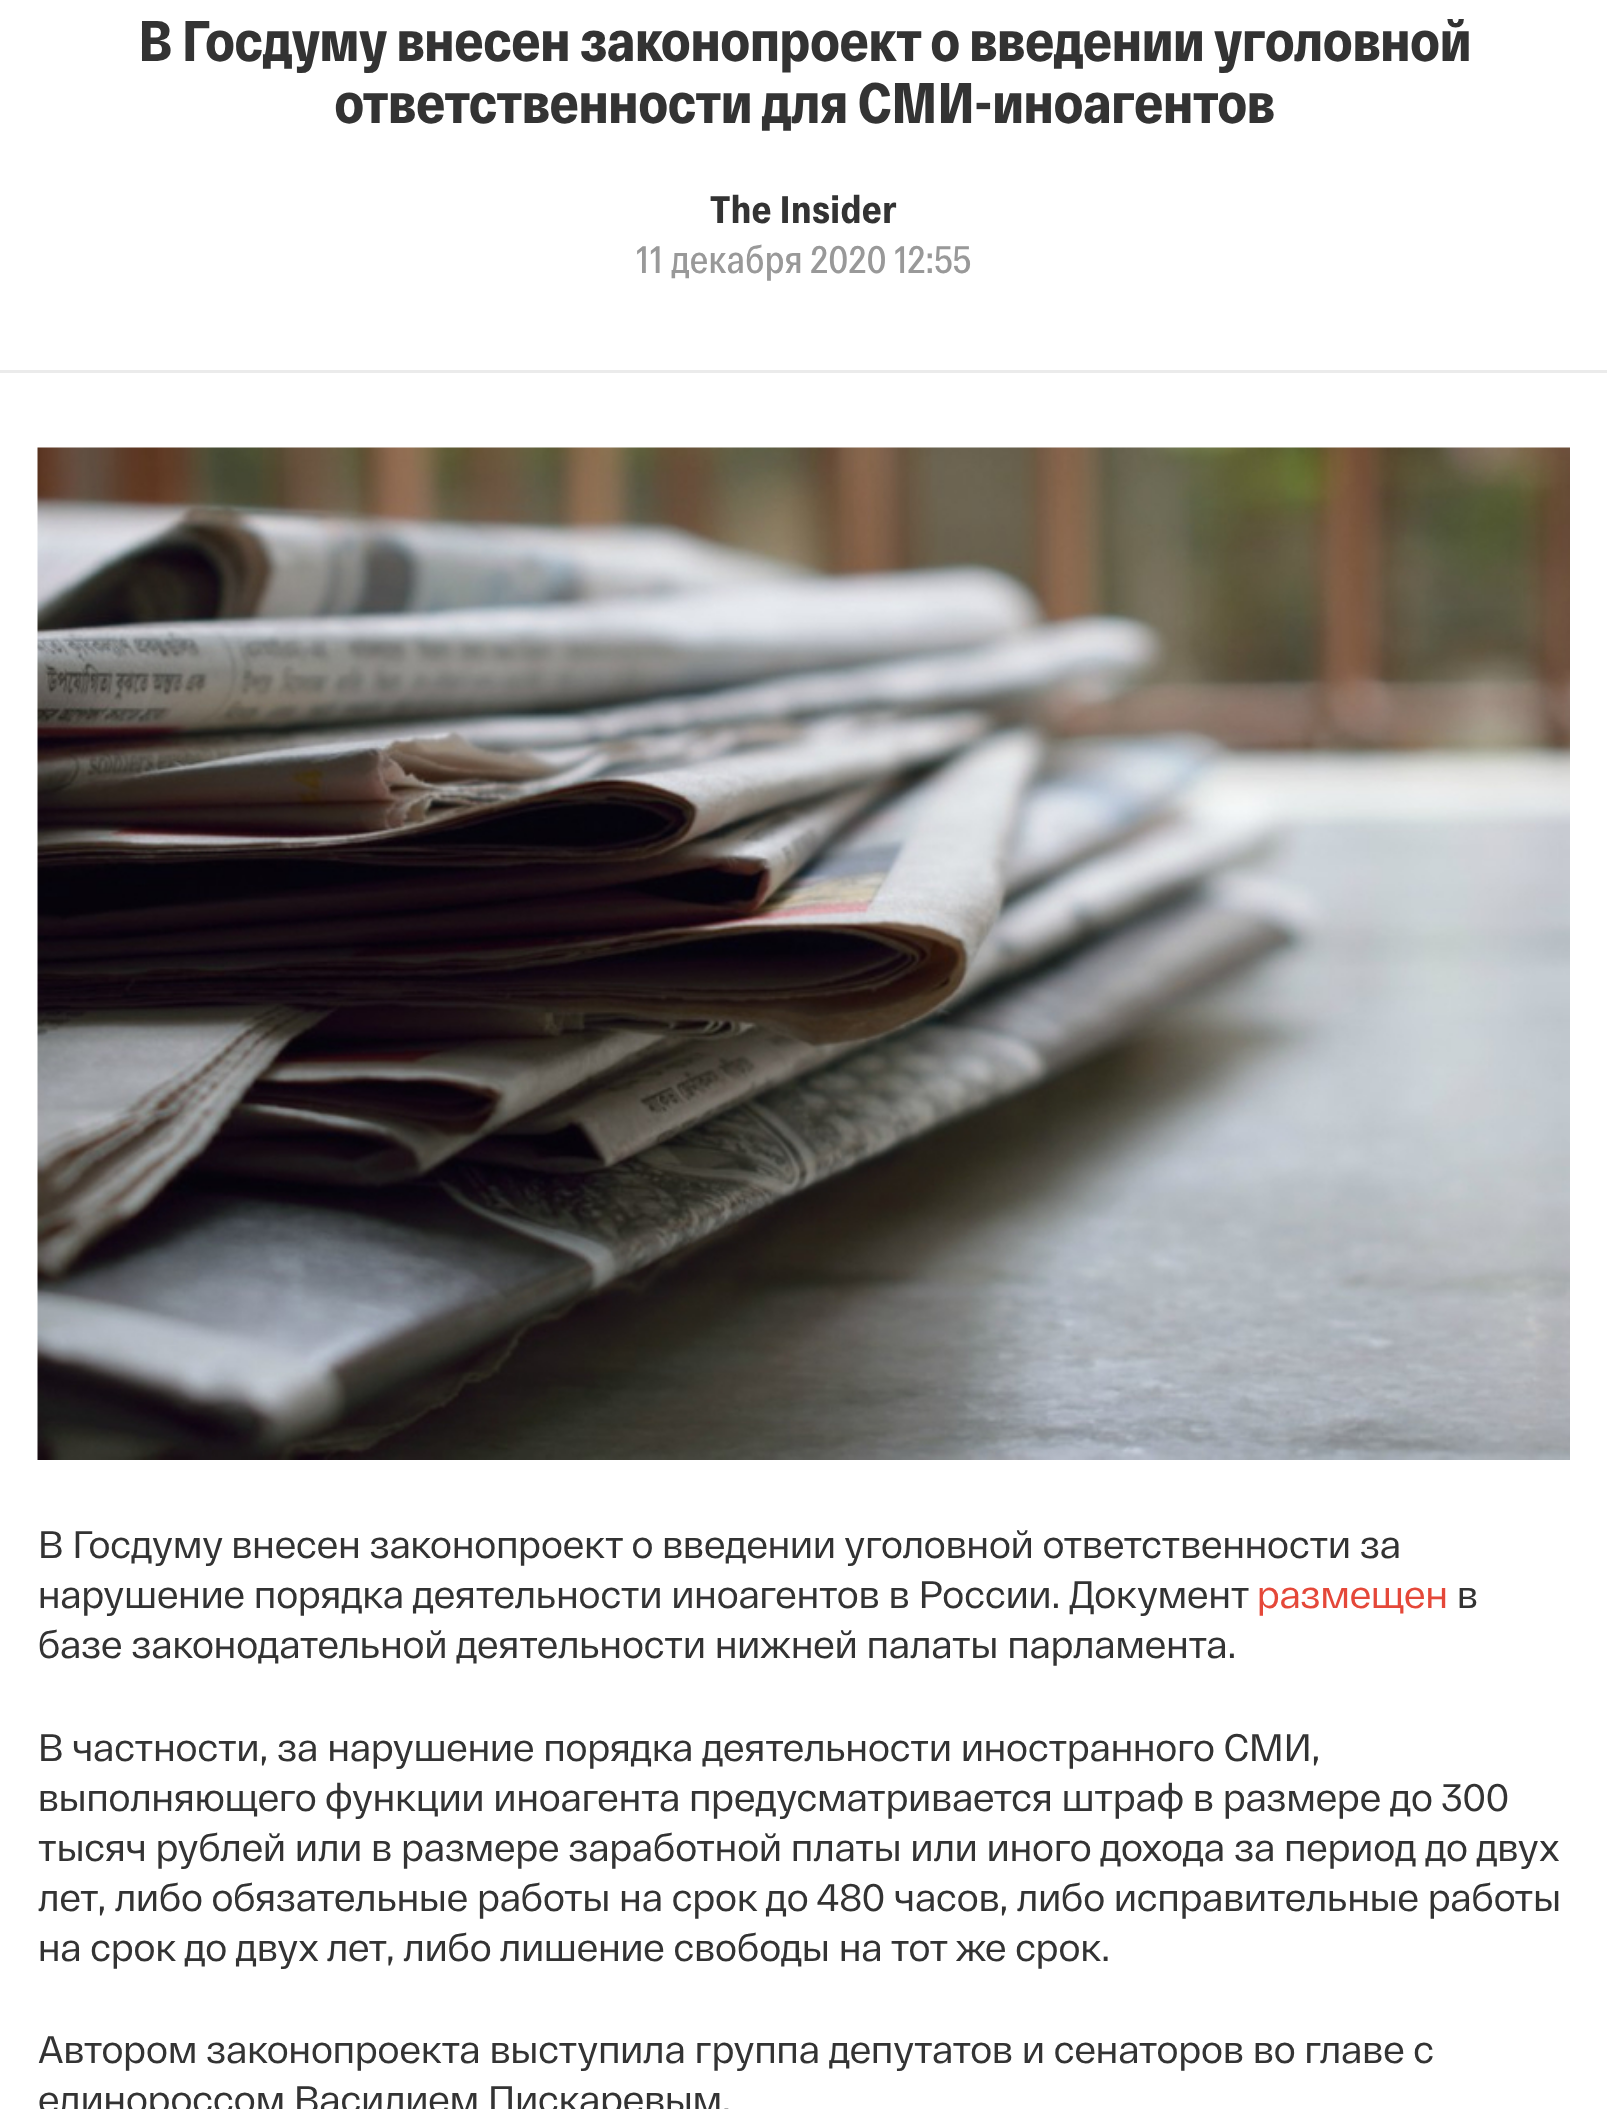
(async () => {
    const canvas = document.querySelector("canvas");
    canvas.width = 1607;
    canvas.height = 2109;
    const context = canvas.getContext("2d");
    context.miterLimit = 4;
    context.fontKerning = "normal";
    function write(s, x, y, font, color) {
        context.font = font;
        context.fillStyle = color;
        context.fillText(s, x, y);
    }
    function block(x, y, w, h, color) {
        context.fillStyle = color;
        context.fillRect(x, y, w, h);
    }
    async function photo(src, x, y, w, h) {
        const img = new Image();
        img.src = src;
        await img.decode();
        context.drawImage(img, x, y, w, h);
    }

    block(0, 0, 1607, 2109, "rgb(255, 255, 255)");
    block(0, 370, 1607, 3, "rgb(235, 235, 235)");
    context.letterSpacing = "-0.85px";
    write("В Госдуму внесен законопроект о введении уголовной", 138, 61, "800 57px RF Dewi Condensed", "rgb(51, 51, 51)");
    write("ответственности для СМИ-иноагентов", 334, 123, "800 57px RF Dewi Condensed", "rgb(51, 51, 51)");
    context.letterSpacing = "0.4px";
    write("The Insider", 710, 223, "800 38.25px RF Dewi Condensed", "rgb(51, 51, 51)");
    write("11 декабря 2020 12:55", 636, 273, "600 38.25px RF Dewi Condensed", "rgb(153, 153, 153)");
    await photo("media/1.png", 37, 447, 1533, 1013);
    context.letterSpacing = "0px";
    write("В Госдуму внесен законопроект о введении уголовной ответственности за", 38, 1558, "38.25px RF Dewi", "rgb(51, 51, 51)");
    write("нарушение порядка деятельности иноагентов в России. Документ", 38, 1608, "38.25px RF Dewi", "rgb(51, 51, 51)");
    write("размещен", 1257, 1608, "38.25px RF Dewi", "rgb(229, 72, 57)");
    write("в", 1457, 1608, "38.25px RF Dewi", "rgb(51, 51, 51)");
    write("базе законодательной деятельности нижней палаты парламента.", 38, 1658, "38.25px RF Dewi", "rgb(51, 51, 51)");
    write("В частности, за нарушение порядка деятельности иностранного СМИ,", 38, 1761, "38.25px RF Dewi", "rgb(51, 51, 51)");
    write("выполняющего функции иноагента предусматривается штраф в размере до 300", 38, 1811, "38.25px RF Dewi", "rgb(51, 51, 51)");
    write("тысяч рублей или в размере заработной платы или иного дохода за период до двух", 38, 1861, "38.25px RF Dewi", "rgb(51, 51, 51)");
    write("лет, либо обязательные работы на срок до 480 часов, либо исправительные работы", 38, 1911, "38.25px RF Dewi", "rgb(51, 51, 51)");
    write("на срок до двух лет, либо лишение свободы на тот же срок.", 38, 1961, "38.25px RF Dewi", "rgb(51, 51, 51)");
    write("Автором законопроекта выступила группа депутатов и сенаторов во главе с", 38, 2063, "38.25px RF Dewi", "rgb(51, 51, 51)");
    write("единороссом Василием Пискаревым.", 38, 2113, "38.25px RF Dewi", "rgb(51, 51, 51)");
})();
